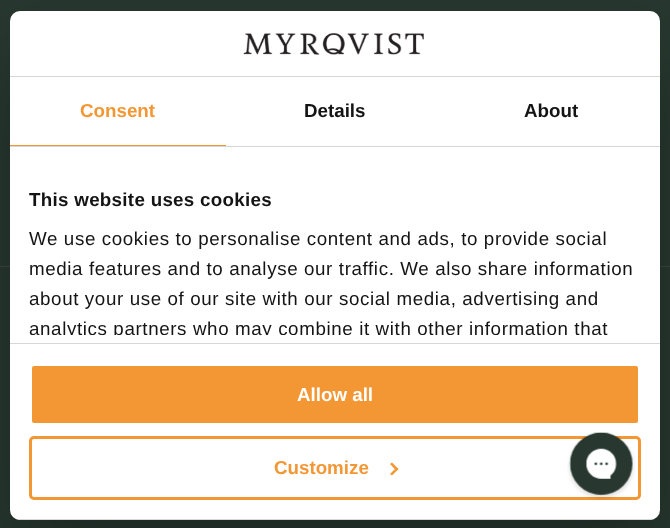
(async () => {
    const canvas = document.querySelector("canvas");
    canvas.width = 670;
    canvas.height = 528;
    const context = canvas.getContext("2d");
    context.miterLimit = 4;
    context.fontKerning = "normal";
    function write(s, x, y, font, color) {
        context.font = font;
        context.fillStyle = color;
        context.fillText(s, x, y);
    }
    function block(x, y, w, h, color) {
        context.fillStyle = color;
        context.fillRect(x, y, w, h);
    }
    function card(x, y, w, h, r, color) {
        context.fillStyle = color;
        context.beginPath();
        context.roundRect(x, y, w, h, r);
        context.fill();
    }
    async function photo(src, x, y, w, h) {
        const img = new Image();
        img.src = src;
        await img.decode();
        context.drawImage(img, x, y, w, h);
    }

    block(0, 0, 670, 528, "rgb(40, 56, 49)");
    block(0, 266, 670, 1, "rgb(57, 72, 65)");
    context.fillStyle = "rgba(0, 0, 0, 0.3)";
    context.filter = "blur(42.5px)";
    context.beginPath();
    context.roundRect(10, 51, 650, 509, 10);
    context.fill();
    context.filter = "none";
    card(10, 11, 650, 509, 10, "rgb(255, 255, 255)");
    block(10, 76, 650, 1, "rgb(214, 214, 214)");
    await photo("media/1.png", 243, 33, 181, 22);
    block(10, 146, 650, 1, "rgb(214, 214, 214)");
    block(10, 145, 216, 1, "rgb(243, 151, 52)");
    write("Consent", 80, 117, "bold 18.75px Liberation Sans", "rgb(243, 151, 52)");
    write("Details", 304, 117, "bold 18.75px Liberation Sans", "rgb(20, 20, 20)");
    write("About", 524, 117, "bold 18.75px Liberation Sans", "rgb(20, 20, 20)");
    block(10, 343, 650, 1, "rgb(214, 214, 214)");
    context.letterSpacing = "0.3px";
    write("This website uses cookies", 29, 206, "bold 18.75px Liberation Sans", "rgb(20, 20, 20)");
    context.letterSpacing = "0.62px";
    write("We use cookies to personalise content and ads, to provide social", 29, 245, "18.75px Liberation Sans", "rgb(20, 20, 20)");
    write("media features and to analyse our traffic. We also share information", 29, 275, "18.75px Liberation Sans", "rgb(20, 20, 20)");
    write("about your use of our site with our social media, advertising and", 29, 305, "18.75px Liberation Sans", "rgb(20, 20, 20)");
    context.save();
    context.beginPath();
    context.rect(18, 155, 635, 180);
    context.clip();
    write("analytics partners who may combine it with other information that", 29, 335, "18.75px Liberation Sans", "rgb(20, 20, 20)");
    context.restore();
    context.save();
    context.beginPath();
    context.roundRect(10, 11, 650, 509, 10);
    context.clip();
    block(10, 519, 650, 1, "rgb(214, 214, 214)");
    context.restore();
    context.fillStyle = "rgb(243, 151, 52)";
    context.beginPath();
    context.roundRect(30.5, 364.5, 609, 60, 3.5);
    context.fill();
    context.strokeStyle = "rgb(255, 255, 255)";
    context.lineWidth = 3;
    context.stroke();
    context.letterSpacing = "0px";
    write("Allow all", 297, 401, "bold 18.75px Liberation Sans", "rgb(255, 255, 255)");
    context.beginPath();
    context.roundRect(30.5, 437.5, 609, 61, 3.5);
    context.strokeStyle = "rgb(243, 151, 52)";
    context.stroke();
    write("Customize", 274, 474, "bold 18.75px Liberation Sans", "rgb(243, 151, 52)");
    context.beginPath();
    context.moveTo(392, 462.5);
    context.lineTo(398.5, 469);
    context.lineTo(396.5, 471);
    context.lineTo(390, 464);
    context.closePath();
    context.fill();
    context.beginPath();
    context.moveTo(396.5, 467.5);
    context.lineTo(398.5, 469);
    context.lineTo(392, 475.5);
    context.lineTo(390, 474);
    context.closePath();
    context.fill();
    await photo("media/2.png", 567, 432, 68, 68);
})();
